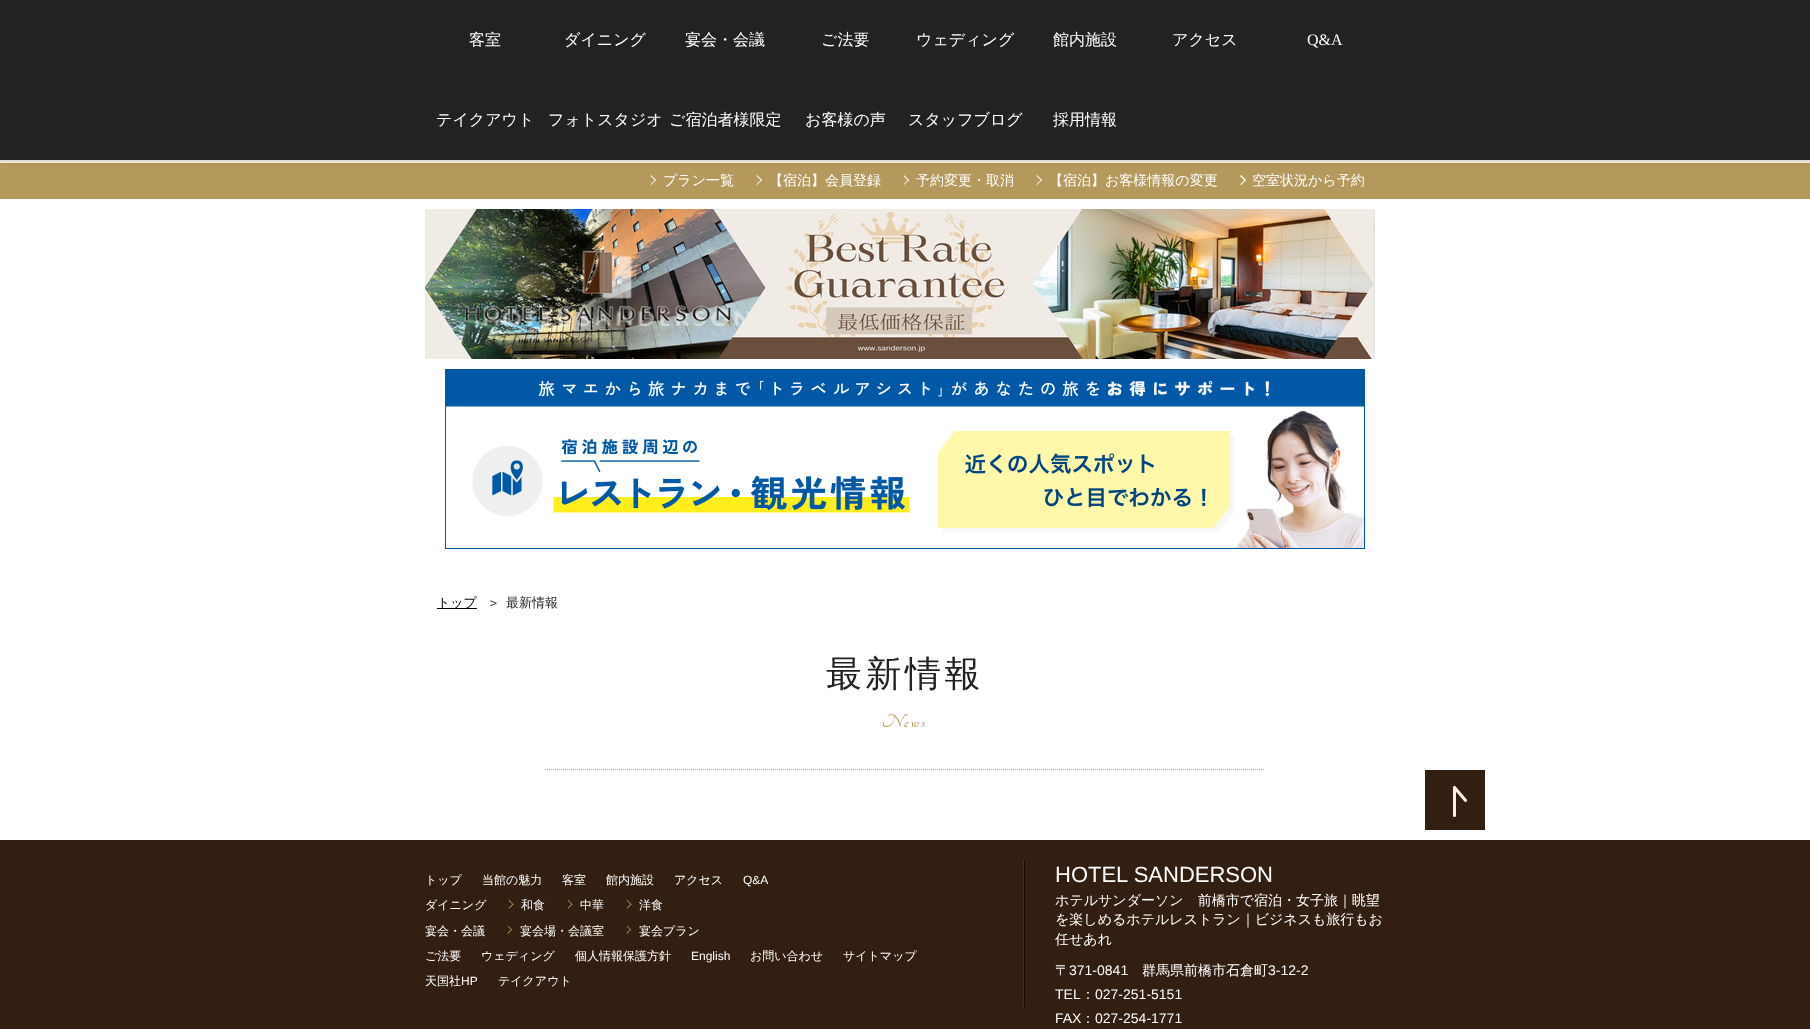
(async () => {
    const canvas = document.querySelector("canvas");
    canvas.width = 1810;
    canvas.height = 1029;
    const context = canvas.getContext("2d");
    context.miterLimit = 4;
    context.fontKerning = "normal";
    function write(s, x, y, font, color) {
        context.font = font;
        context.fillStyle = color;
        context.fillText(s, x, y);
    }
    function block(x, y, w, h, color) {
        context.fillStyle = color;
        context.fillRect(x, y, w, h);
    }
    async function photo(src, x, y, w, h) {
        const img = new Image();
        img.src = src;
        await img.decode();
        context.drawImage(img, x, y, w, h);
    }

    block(0, 0, 1810, 1029, "rgb(255, 255, 255)");
    block(0, 160, 1810, 3, "rgb(251, 243, 232)");
    block(0, 163, 1810, 36, "rgb(181, 153, 92)");
    context.fillStyle = "rgba(0, 0, 0, 0.18)";
    context.filter = "blur(2px)";
    context.beginPath();
    context.rect(-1, -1, 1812, 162);
    context.fill();
    context.filter = "none";
    block(0, 0, 1810, 160, "rgb(34, 34, 34)");
    write("客室", 469, 45, "500 16px WenQuanYi Zen Hei", "rgb(255, 255, 255)");
    write("ダイニング", 564, 45, "500 16px WenQuanYi Zen Hei", "rgb(255, 255, 255)");
    write("宴会・会議", 685, 45, "500 16px WenQuanYi Zen Hei", "rgb(255, 255, 255)");
    write("ご法要", 821, 45, "500 16px WenQuanYi Zen Hei", "rgb(255, 255, 255)");
    write("ウェディング", 916, 45, "500 16px WenQuanYi Zen Hei", "rgb(255, 255, 255)");
    write("館内施設", 1053, 45, "500 16px WenQuanYi Zen Hei", "rgb(255, 255, 255)");
    write("アクセス", 1172, 45, "500 16px WenQuanYi Zen Hei", "rgb(255, 255, 255)");
    write("Q&A", 1307, 45, "16px Liberation Serif", "rgb(255, 255, 255)");
    write("テイクアウト", 436, 125, "500 16px WenQuanYi Zen Hei", "rgb(255, 255, 255)");
    write("フォトスタジオ", 548, 125, "500 16px WenQuanYi Zen Hei", "rgb(255, 255, 255)");
    write("ご宿泊者様限定", 669, 125, "500 16px WenQuanYi Zen Hei", "rgb(255, 255, 255)");
    write("お客様の声", 805, 125, "500 16px WenQuanYi Zen Hei", "rgb(255, 255, 255)");
    write("スタッフブログ", 908, 125, "500 16px WenQuanYi Zen Hei", "rgb(255, 255, 255)");
    write("採用情報", 1053, 125, "500 16px WenQuanYi Zen Hei", "rgb(255, 255, 255)");
    context.beginPath();
    context.moveTo(651, 175);
    context.lineTo(656, 180);
    context.lineTo(655.5, 181);
    context.lineTo(650.5, 176);
    context.closePath();
    context.fill();
    context.beginPath();
    context.moveTo(655.5, 179.5);
    context.lineTo(656, 180);
    context.lineTo(651, 185);
    context.lineTo(650.5, 184.5);
    context.closePath();
    context.fill();
    write("プラン一覧", 663, 185, "500 14px WenQuanYi Zen Hei", "rgb(255, 255, 255)");
    context.beginPath();
    context.moveTo(757, 175);
    context.lineTo(762, 180);
    context.lineTo(761.5, 181);
    context.lineTo(756.5, 176);
    context.closePath();
    context.fill();
    context.beginPath();
    context.moveTo(761.5, 179.5);
    context.lineTo(762, 180);
    context.lineTo(757, 185);
    context.lineTo(756.5, 184.5);
    context.closePath();
    context.fill();
    write("【宿泊】会員登録", 769, 185, "500 14px WenQuanYi Zen Hei", "rgb(255, 255, 255)");
    context.beginPath();
    context.moveTo(904, 175);
    context.lineTo(909, 180);
    context.lineTo(908.5, 181);
    context.lineTo(903.5, 176);
    context.closePath();
    context.fill();
    context.beginPath();
    context.moveTo(908.5, 179.5);
    context.lineTo(909, 180);
    context.lineTo(904, 185);
    context.lineTo(903.5, 184.5);
    context.closePath();
    context.fill();
    write("予約変更・取消", 916, 185, "500 14px WenQuanYi Zen Hei", "rgb(255, 255, 255)");
    context.beginPath();
    context.moveTo(1037, 175);
    context.lineTo(1042, 180);
    context.lineTo(1041.5, 181);
    context.lineTo(1036.5, 176);
    context.closePath();
    context.fill();
    context.beginPath();
    context.moveTo(1041.5, 179.5);
    context.lineTo(1042, 180);
    context.lineTo(1037, 185);
    context.lineTo(1036.5, 184.5);
    context.closePath();
    context.fill();
    write("【宿泊】お客様情報の変更", 1049, 185, "500 14px WenQuanYi Zen Hei", "rgb(255, 255, 255)");
    context.beginPath();
    context.moveTo(1241, 175);
    context.lineTo(1246, 180);
    context.lineTo(1245, 181);
    context.lineTo(1240, 176);
    context.closePath();
    context.fill();
    context.beginPath();
    context.moveTo(1245, 179.5);
    context.lineTo(1246, 180);
    context.lineTo(1241, 185);
    context.lineTo(1240, 184.5);
    context.closePath();
    context.fill();
    write("空室状況から予約", 1252, 185, "500 14px WenQuanYi Zen Hei", "rgb(255, 255, 255)");
    await photo("media/1.png", 425, 209, 950, 150);
    await photo("media/2.png", 445, 369, 920, 180);
    block(437, 608, 40, 1, "rgb(0, 0, 0)");
    write("トップ", 437, 607, "500 13px WenQuanYi Zen Hei", "rgb(0, 0, 0)");
    write("＞", 487, 607, "500 13px WenQuanYi Zen Hei", "rgb(34, 34, 34)");
    write("最新情報", 506, 607, "500 13px WenQuanYi Zen Hei", "rgb(34, 34, 34)");
    context.beginPath();
    context.moveTo(545, 769.5);
    context.lineTo(1265, 769.5);
    context.strokeStyle = "rgb(170, 170, 170)";
    context.setLineDash([1, 1]);
    context.stroke();
    context.letterSpacing = "3.5px";
    write("最新情報", 826, 686, "500 36px WenQuanYi Zen Hei", "rgb(34, 34, 34)");
    context.letterSpacing = "2px";
    write("News", 882, 727, "bold 20px Tangerine", "rgb(187, 159, 99)");
    block(1425, 770, 60, 60, "rgb(50, 31, 18)");
    await photo("media/3.png", 1453, 786, 14, 31);
    block(0, 840, 1810, 189, "rgb(50, 31, 18)");
    await photo("media/4.png", 1023, 860, 2, 147);
    context.letterSpacing = "0px";
    write("トップ", 425, 884, "500 12px WenQuanYi Zen Hei", "rgb(255, 255, 255)");
    write("当館の魅力", 482, 884, "500 12px WenQuanYi Zen Hei", "rgb(255, 255, 255)");
    write("客室", 562, 884, "500 12px WenQuanYi Zen Hei", "rgb(255, 255, 255)");
    write("館内施設", 606, 884, "500 12px WenQuanYi Zen Hei", "rgb(255, 255, 255)");
    write("アクセス", 674, 884, "500 12px WenQuanYi Zen Hei", "rgb(255, 255, 255)");
    write("Q&A", 743, 884, "12px Liberation Sans", "rgb(255, 255, 255)");
    write("ダイニング", 425, 909, "500 12px WenQuanYi Zen Hei", "rgb(255, 255, 255)");
    context.fillStyle = "rgb(169, 137, 74)";
    context.beginPath();
    context.moveTo(509.5, 900);
    context.lineTo(513.5, 904.5);
    context.lineTo(513, 905);
    context.lineTo(508.5, 900.5);
    context.closePath();
    context.fill();
    context.beginPath();
    context.moveTo(513, 903.5);
    context.lineTo(513.5, 904.5);
    context.lineTo(509.5, 908.5);
    context.lineTo(508.5, 908);
    context.closePath();
    context.fill();
    write("和食", 521, 909, "500 12px WenQuanYi Zen Hei", "rgb(255, 255, 255)");
    context.fillStyle = "rgb(169, 137, 74)";
    context.beginPath();
    context.moveTo(568.5, 900);
    context.lineTo(572.5, 904.5);
    context.lineTo(572, 905);
    context.lineTo(567.5, 900.5);
    context.closePath();
    context.fill();
    context.beginPath();
    context.moveTo(572, 903.5);
    context.lineTo(572.5, 904.5);
    context.lineTo(568.5, 908.5);
    context.lineTo(567.5, 908);
    context.closePath();
    context.fill();
    write("中華", 580, 909, "500 12px WenQuanYi Zen Hei", "rgb(255, 255, 255)");
    context.fillStyle = "rgb(169, 137, 74)";
    context.beginPath();
    context.moveTo(627.5, 900);
    context.lineTo(631.5, 904.5);
    context.lineTo(631, 905);
    context.lineTo(626.5, 900.5);
    context.closePath();
    context.fill();
    context.beginPath();
    context.moveTo(631, 903.5);
    context.lineTo(631.5, 904.5);
    context.lineTo(627.5, 908.5);
    context.lineTo(626.5, 908);
    context.closePath();
    context.fill();
    write("洋食", 639, 909, "500 12px WenQuanYi Zen Hei", "rgb(255, 255, 255)");
    write("宴会・会議", 425, 935, "500 12px WenQuanYi Zen Hei", "rgb(255, 255, 255)");
    context.fillStyle = "rgb(169, 137, 74)";
    context.beginPath();
    context.moveTo(508, 925.5);
    context.lineTo(512, 929.5);
    context.lineTo(511.5, 930.5);
    context.lineTo(507.5, 926);
    context.closePath();
    context.fill();
    context.beginPath();
    context.moveTo(511.5, 929);
    context.lineTo(512, 929.5);
    context.lineTo(508, 934);
    context.lineTo(507.5, 933);
    context.closePath();
    context.fill();
    write("宴会場・会議室", 520, 935, "500 12px WenQuanYi Zen Hei", "rgb(255, 255, 255)");
    context.fillStyle = "rgb(169, 137, 74)";
    context.beginPath();
    context.moveTo(627, 925.5);
    context.lineTo(631, 929.5);
    context.lineTo(630.5, 930.5);
    context.lineTo(626.5, 926);
    context.closePath();
    context.fill();
    context.beginPath();
    context.moveTo(630.5, 929);
    context.lineTo(631, 929.5);
    context.lineTo(627, 934);
    context.lineTo(626.5, 933);
    context.closePath();
    context.fill();
    write("宴会プラン", 639, 935, "500 12px WenQuanYi Zen Hei", "rgb(255, 255, 255)");
    write("ご法要", 425, 960, "500 12px WenQuanYi Zen Hei", "rgb(255, 255, 255)");
    write("ウェディング", 481, 960, "500 12px WenQuanYi Zen Hei", "rgb(255, 255, 255)");
    write("個人情報保護方針", 575, 960, "500 12px WenQuanYi Zen Hei", "rgb(255, 255, 255)");
    write("English", 691, 960, "12px Liberation Sans", "rgb(255, 255, 255)");
    write("お問い合わせ", 750, 960, "500 12px WenQuanYi Zen Hei", "rgb(255, 255, 255)");
    write("サイトマップ", 843, 960, "500 12px WenQuanYi Zen Hei", "rgb(255, 255, 255)");
    write("天国社", 425, 985, "500 12px WenQuanYi Zen Hei", "rgb(255, 255, 255)");
    write("HP", 461, 985, "12px Liberation Sans", "rgb(255, 255, 255)");
    write("テイクアウト", 498, 985, "500 12px WenQuanYi Zen Hei", "rgb(255, 255, 255)");
    write("HOTEL SANDERSON", 1055, 882, "22px Liberation Sans", "rgb(255, 255, 255)");
    write("ホテルサンダーソン　前橋市で宿泊・女子旅｜眺望", 1055, 905, "500 14px WenQuanYi Zen Hei", "rgb(255, 255, 255)");
    write("を楽しめるホテルレストラン｜ビジネスも旅行もお", 1055, 924, "500 14px WenQuanYi Zen Hei", "rgb(255, 255, 255)");
    write("任せあれ", 1055, 944, "500 14px WenQuanYi Zen Hei", "rgb(255, 255, 255)");
    write("〒", 1055, 975, "500 14px WenQuanYi Zen Hei", "rgb(255, 255, 255)");
    write("371-0841", 1069, 975, "14px Liberation Sans", "rgb(255, 255, 255)");
    write("群馬県前橋市石倉町", 1142, 975, "500 14px WenQuanYi Zen Hei", "rgb(255, 255, 255)");
    write("3-12-2", 1268, 975, "14px Liberation Sans", "rgb(255, 255, 255)");
    write("TEL", 1055, 999, "14px Liberation Sans", "rgb(255, 255, 255)");
    write("：", 1081, 999, "500 14px WenQuanYi Zen Hei", "rgb(255, 255, 255)");
    write("027-251-5151", 1095, 999, "14px Liberation Sans", "rgb(255, 255, 255)");
    write("FAX", 1055, 1023, "14px Liberation Sans", "rgb(255, 255, 255)");
    write("：", 1081, 1023, "500 14px WenQuanYi Zen Hei", "rgb(255, 255, 255)");
    write("027-254-1771", 1095, 1023, "14px Liberation Sans", "rgb(255, 255, 255)");
})();
